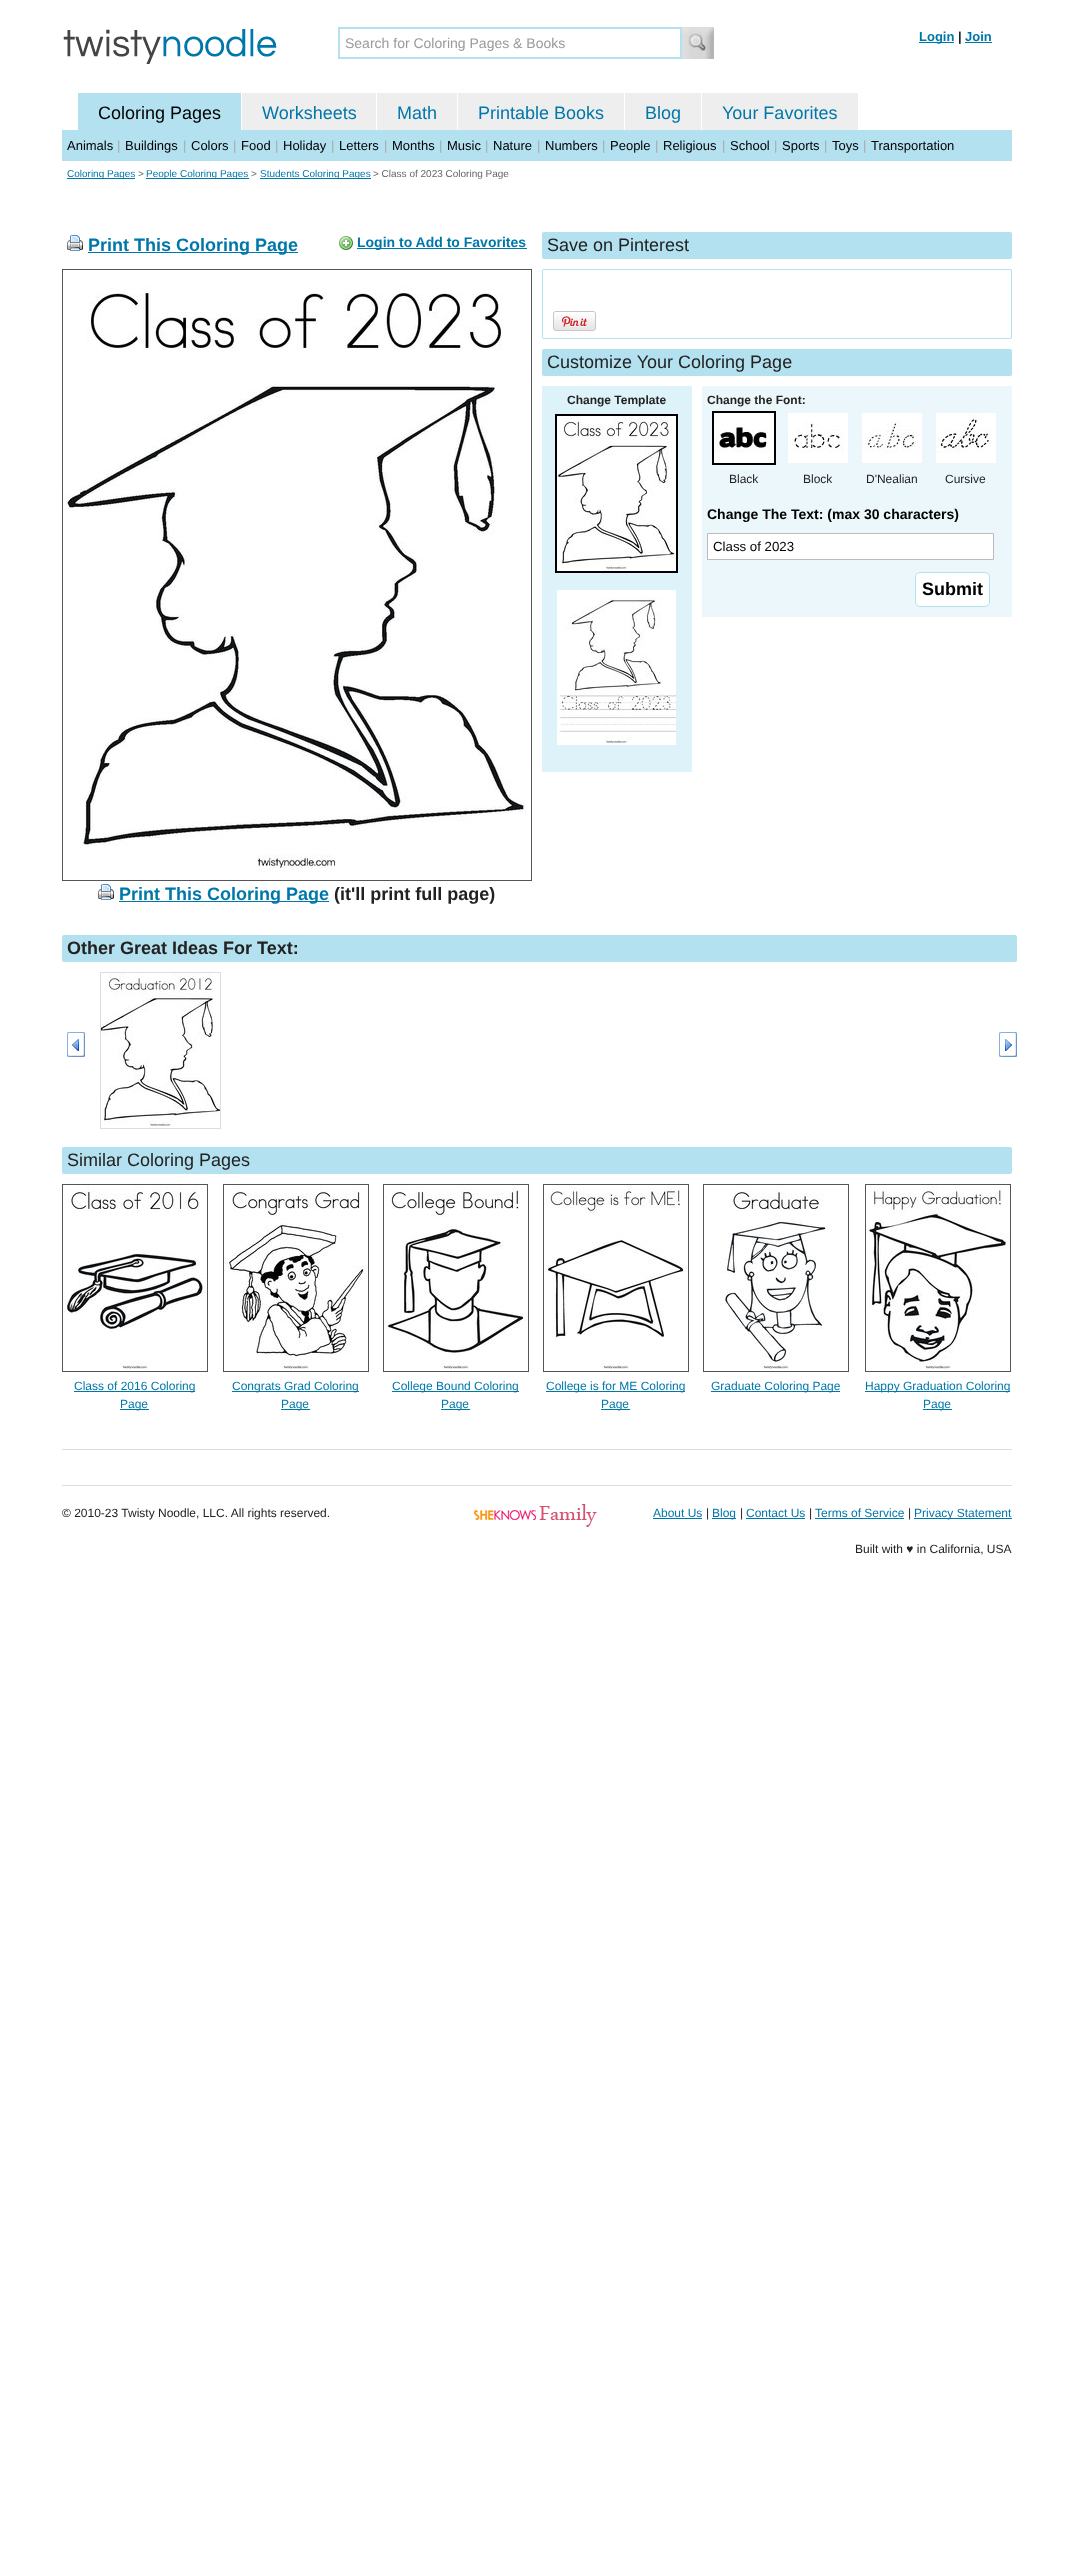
(async () => {
    const canvas = document.querySelector("canvas");
    canvas.width = 1073;
    canvas.height = 2549;
    const context = canvas.getContext("2d");
    context.miterLimit = 4;
    context.fontKerning = "normal";
    function write(s, x, y, font, color) {
        context.font = font;
        context.fillStyle = color;
        context.fillText(s, x, y);
    }
    function block(x, y, w, h, color) {
        context.fillStyle = color;
        context.fillRect(x, y, w, h);
    }
    function card(x, y, w, h, r, color) {
        context.fillStyle = color;
        context.beginPath();
        context.roundRect(x, y, w, h, r);
        context.fill();
    }
    async function photo(src, x, y, w, h) {
        const img = new Image();
        img.src = src;
        await img.decode();
        context.drawImage(img, x, y, w, h);
    }

    block(0, 0, 1073, 2549, "rgb(255, 255, 255)");
    await photo("media/1.png", 63, 29, 214, 35);
    context.strokeStyle = "rgb(179, 225, 240)";
    context.lineWidth = 2;
    context.strokeRect(339, 28, 342, 30);
    write("Search for Coloring Pages & Books", 345, 48, "14px Liberation Sans", "rgb(153, 153, 153)");
    await photo("media/2.png", 682, 27, 32, 32);
    block(919, 42, 35, 1, "rgb(0, 119, 170)");
    write("Login", 919, 41, "bold 13px Liberation Sans", "rgb(0, 119, 170)");
    write("|", 958, 41, "bold 13px Liberation Sans", "rgb(34, 34, 34)");
    write("Join", 965, 41, "bold 13px Liberation Sans", "rgb(0, 119, 170)");
    block(965, 42, 27, 1, "rgb(0, 119, 170)");
    block(78, 93, 163, 37, "rgb(179, 225, 240)");
    write("Coloring Pages", 98, 119, "18px Liberation Sans", "rgb(0, 0, 0)");
    block(242, 93, 134, 37, "rgb(238, 238, 238)");
    write("Worksheets", 262, 119, "18px Liberation Sans", "rgb(0, 119, 170)");
    block(377, 93, 80, 37, "rgb(238, 238, 238)");
    write("Math", 397, 119, "18px Liberation Sans", "rgb(0, 119, 170)");
    block(458, 93, 166, 37, "rgb(238, 238, 238)");
    write("Printable Books", 478, 119, "18px Liberation Sans", "rgb(0, 119, 170)");
    block(625, 93, 76, 37, "rgb(238, 238, 238)");
    write("Blog", 645, 119, "18px Liberation Sans", "rgb(0, 119, 170)");
    block(702, 93, 156, 37, "rgb(238, 238, 238)");
    write("Your Favorites", 722, 119, "18px Liberation Sans", "rgb(0, 119, 170)");
    block(62, 130, 950, 31, "rgb(179, 225, 240)");
    write("Animals", 67, 150, "13px Liberation Sans", "rgb(0, 0, 0)");
    write("|", 117, 150, "13px Liberation Sans", "rgb(170, 170, 170)");
    write("Buildings", 125, 150, "13px Liberation Sans", "rgb(0, 0, 0)");
    write("|", 183, 150, "13px Liberation Sans", "rgb(170, 170, 170)");
    write("Colors", 191, 150, "13px Liberation Sans", "rgb(0, 0, 0)");
    write("|", 233, 150, "13px Liberation Sans", "rgb(170, 170, 170)");
    write("Food", 241, 150, "13px Liberation Sans", "rgb(0, 0, 0)");
    write("|", 275, 150, "13px Liberation Sans", "rgb(170, 170, 170)");
    write("Holiday", 283, 150, "13px Liberation Sans", "rgb(0, 0, 0)");
    write("|", 331, 150, "13px Liberation Sans", "rgb(170, 170, 170)");
    write("Letters", 339, 150, "13px Liberation Sans", "rgb(0, 0, 0)");
    write("|", 384, 150, "13px Liberation Sans", "rgb(170, 170, 170)");
    write("Months", 392, 150, "13px Liberation Sans", "rgb(0, 0, 0)");
    write("|", 439, 150, "13px Liberation Sans", "rgb(170, 170, 170)");
    write("Music", 447, 150, "13px Liberation Sans", "rgb(0, 0, 0)");
    write("|", 485, 150, "13px Liberation Sans", "rgb(170, 170, 170)");
    write("Nature", 493, 150, "13px Liberation Sans", "rgb(0, 0, 0)");
    write("|", 537, 150, "13px Liberation Sans", "rgb(170, 170, 170)");
    write("Numbers", 545, 150, "13px Liberation Sans", "rgb(0, 0, 0)");
    write("|", 602, 150, "13px Liberation Sans", "rgb(170, 170, 170)");
    write("People", 610, 150, "13px Liberation Sans", "rgb(0, 0, 0)");
    write("|", 655, 150, "13px Liberation Sans", "rgb(170, 170, 170)");
    write("Religious", 663, 150, "13px Liberation Sans", "rgb(0, 0, 0)");
    write("|", 722, 150, "13px Liberation Sans", "rgb(170, 170, 170)");
    write("School", 730, 150, "13px Liberation Sans", "rgb(0, 0, 0)");
    write("|", 774, 150, "13px Liberation Sans", "rgb(170, 170, 170)");
    write("Sports", 782, 150, "13px Liberation Sans", "rgb(0, 0, 0)");
    write("|", 824, 150, "13px Liberation Sans", "rgb(170, 170, 170)");
    write("Toys", 832, 150, "13px Liberation Sans", "rgb(0, 0, 0)");
    write("|", 863, 150, "13px Liberation Sans", "rgb(170, 170, 170)");
    write("Transportation", 871, 150, "13px Liberation Sans", "rgb(0, 0, 0)");
    block(67, 178, 68, 1, "rgb(0, 119, 170)");
    write("Coloring Pages", 67, 177, "10px Liberation Sans", "rgb(0, 119, 170)");
    write(">", 138, 177, "10px Liberation Sans", "rgb(102, 102, 102)");
    block(146, 178, 103, 1, "rgb(0, 119, 170)");
    write("People Coloring Pages", 146, 177, "10px Liberation Sans", "rgb(0, 119, 170)");
    write(">", 251, 177, "10px Liberation Sans", "rgb(102, 102, 102)");
    block(260, 178, 111, 1, "rgb(0, 119, 170)");
    write("Students Coloring Pages", 260, 177, "10px Liberation Sans", "rgb(0, 119, 170)");
    write("> Class of 2023 Coloring Page", 373, 177, "10px Liberation Sans", "rgb(102, 102, 102)");
    await photo("media/3.png", 67, 235, 16, 16);
    block(88, 252, 210, 1, "rgb(0, 119, 170)");
    write("Print This Coloring Page", 88, 251, "bold 18px Liberation Sans", "rgb(0, 119, 170)");
    await photo("media/4.png", 339, 236, 14, 14);
    block(357, 248, 170, 1, "rgb(0, 119, 170)");
    write("Login to Add to Favorites", 357, 247, "bold 14px Liberation Sans", "rgb(0, 119, 170)");
    context.strokeStyle = "rgb(85, 85, 85)";
    context.lineWidth = 1;
    context.strokeRect(62.5, 269.5, 469, 611);
    await photo("media/5.png", 63, 286, 464, 584);
    await photo("media/3.png", 98, 884, 16, 16);
    block(119, 901, 210, 1, "rgb(0, 119, 170)");
    write("Print This Coloring Page", 119, 900, "bold 18px Liberation Sans", "rgb(0, 119, 170)");
    write("(it'll print full page)", 334, 900, "bold 18px Liberation Sans", "rgb(34, 34, 34)");
    card(542, 232, 470, 27, 2, "rgb(179, 225, 240)");
    write("Save on Pinterest", 547, 251, "18px Liberation Sans", "rgb(34, 34, 34)");
    context.beginPath();
    context.roundRect(542.5, 269.5, 469, 69, 1.5);
    context.strokeStyle = "rgb(179, 225, 240)";
    context.stroke();
    await photo("media/6.png", 553, 311, 43, 20);
    card(542, 349, 470, 27, 2, "rgb(179, 225, 240)");
    write("Customize Your Coloring Page", 547, 368, "18px Liberation Sans", "rgb(34, 34, 34)");
    block(542, 386, 150, 386, "rgb(221, 242, 249)");
    write("Change Template", 567, 404, "bold 12px Liberation Sans", "rgb(34, 34, 34)");
    context.strokeStyle = "rgb(0, 0, 0)";
    context.lineWidth = 2;
    context.strokeRect(556, 415, 121, 157);
    await photo("media/7.png", 557, 416, 119, 155);
    await photo("media/8.png", 557, 590, 119, 155);
    block(702, 386, 310, 231, "rgb(236, 247, 251)");
    write("Change the Font:", 707, 404, "bold 12px Liberation Sans", "rgb(34, 34, 34)");
    context.strokeRect(713, 412, 62, 52);
    await photo("media/9.png", 714, 413, 60, 50);
    write("Black", 729, 483, "12px Liberation Sans", "rgb(34, 34, 34)");
    await photo("media/10.png", 788, 413, 60, 50);
    write("Block", 803, 483, "12px Liberation Sans", "rgb(34, 34, 34)");
    await photo("media/11.png", 862, 413, 60, 50);
    write("D'Nealian", 866, 483, "12px Liberation Sans", "rgb(34, 34, 34)");
    await photo("media/12.png", 936, 413, 60, 50);
    write("Cursive", 945, 483, "12px Liberation Sans", "rgb(34, 34, 34)");
    write("Change The Text: (max 30 characters)", 707, 519, "bold 14px Liberation Sans", "rgb(0, 0, 0)");
    context.fillStyle = "rgb(255, 255, 255)";
    context.beginPath();
    context.rect(707.5, 533.5, 286, 26);
    context.fill();
    context.strokeStyle = "rgb(187, 187, 187)";
    context.lineWidth = 1;
    context.stroke();
    write("Class of 2023", 713, 551, "13.25px Liberation Sans", "rgb(0, 0, 0)");
    context.fillStyle = "rgb(255, 255, 255)";
    context.beginPath();
    context.roundRect(915.5, 572.5, 74, 34, 4.5);
    context.fill();
    context.strokeStyle = "rgb(179, 225, 240)";
    context.stroke();
    write("Submit", 922, 595, "bold 18px Liberation Sans", "rgb(0, 0, 0)");
    card(62, 935, 955, 27, 2, "rgb(179, 225, 240)");
    write("Other Great Ideas For Text:", 67, 954, "bold 18px Liberation Sans", "rgb(34, 34, 34)");
    await photo("media/13.png", 67, 1032, 18, 25);
    context.strokeStyle = "rgb(221, 221, 221)";
    context.strokeRect(100.5, 972.5, 120, 156);
    await photo("media/14.png", 101, 973, 119, 155);
    await photo("media/15.png", 999, 1032, 18, 25);
    card(62, 1147, 950, 27, 2, "rgb(179, 225, 240)");
    write("Similar Coloring Pages", 67, 1166, "18px Liberation Sans", "rgb(34, 34, 34)");
    context.strokeStyle = "rgb(85, 85, 85)";
    context.strokeRect(62.5, 1184.5, 145, 187);
    await photo("media/16.png", 63, 1185, 144, 184);
    block(74, 1391, 121, 1, "rgb(0, 119, 170)");
    write("Class of 2016 Coloring", 74, 1390, "12px Liberation Sans", "rgb(0, 119, 170)");
    block(120, 1409, 29, 1, "rgb(0, 119, 170)");
    write("Page", 120, 1408, "12px Liberation Sans", "rgb(0, 119, 170)");
    context.strokeRect(223.5, 1184.5, 145, 187);
    await photo("media/17.png", 224, 1185, 144, 184);
    block(232, 1391, 127, 1, "rgb(0, 119, 170)");
    write("Congrats Grad Coloring", 232, 1390, "12px Liberation Sans", "rgb(0, 119, 170)");
    block(281, 1409, 29, 1, "rgb(0, 119, 170)");
    write("Page", 281, 1408, "12px Liberation Sans", "rgb(0, 119, 170)");
    context.strokeRect(383.5, 1184.5, 145, 187);
    await photo("media/18.png", 384, 1185, 144, 184);
    block(392, 1391, 127, 1, "rgb(0, 119, 170)");
    write("College Bound Coloring", 392, 1390, "12px Liberation Sans", "rgb(0, 119, 170)");
    block(441, 1409, 29, 1, "rgb(0, 119, 170)");
    write("Page", 441, 1408, "12px Liberation Sans", "rgb(0, 119, 170)");
    context.strokeRect(543.5, 1184.5, 145, 187);
    await photo("media/19.png", 545, 1185, 143, 184);
    block(546, 1391, 139, 1, "rgb(0, 119, 170)");
    write("College is for ME Coloring", 546, 1390, "12px Liberation Sans", "rgb(0, 119, 170)");
    block(601, 1409, 29, 1, "rgb(0, 119, 170)");
    write("Page", 601, 1408, "12px Liberation Sans", "rgb(0, 119, 170)");
    context.strokeRect(703.5, 1184.5, 145, 187);
    await photo("media/20.png", 720, 1185, 112, 184);
    block(711, 1391, 129, 1, "rgb(0, 119, 170)");
    write("Graduate Coloring Page", 711, 1390, "12px Liberation Sans", "rgb(0, 119, 170)");
    context.strokeRect(865.5, 1184.5, 145, 187);
    await photo("media/21.png", 866, 1185, 144, 184);
    block(865, 1391, 145, 1, "rgb(0, 119, 170)");
    write("Happy Graduation Coloring", 865, 1390, "12px Liberation Sans", "rgb(0, 119, 170)");
    block(923, 1409, 29, 1, "rgb(0, 119, 170)");
    write("Page", 923, 1408, "12px Liberation Sans", "rgb(0, 119, 170)");
    block(62, 1449, 950, 1, "rgb(221, 221, 221)");
    block(62, 1485, 950, 1, "rgb(221, 221, 221)");
    write("© 2010-23 Twisty Noodle, LLC. All rights reserved.", 62, 1517, "12px Liberation Sans", "rgb(34, 34, 34)");
    await photo("media/22.png", 473, 1504, 124, 23);
    write("About Us", 653, 1517, "12px Liberation Sans", "rgb(0, 119, 170)");
    block(653, 1518, 49, 1, "rgb(0, 119, 170)");
    write("|", 706, 1517, "12px Liberation Sans", "rgb(34, 34, 34)");
    block(712, 1518, 24, 1, "rgb(0, 119, 170)");
    write("Blog", 712, 1517, "12px Liberation Sans", "rgb(0, 119, 170)");
    write("|", 740, 1517, "12px Liberation Sans", "rgb(34, 34, 34)");
    write("Contact Us", 746, 1517, "12px Liberation Sans", "rgb(0, 119, 170)");
    block(746, 1518, 59, 1, "rgb(0, 119, 170)");
    write("|", 809, 1517, "12px Liberation Sans", "rgb(34, 34, 34)");
    write("Terms of Service", 815, 1517, "12px Liberation Sans", "rgb(0, 119, 170)");
    block(815, 1518, 89, 1, "rgb(0, 119, 170)");
    write("|", 908, 1517, "12px Liberation Sans", "rgb(34, 34, 34)");
    block(914, 1518, 98, 1, "rgb(0, 119, 170)");
    write("Privacy Statement", 914, 1517, "12px Liberation Sans", "rgb(0, 119, 170)");
    write("Built with ♥ in California, USA", 855, 1553, "12px Liberation Sans", "rgb(34, 34, 34)");
})();
